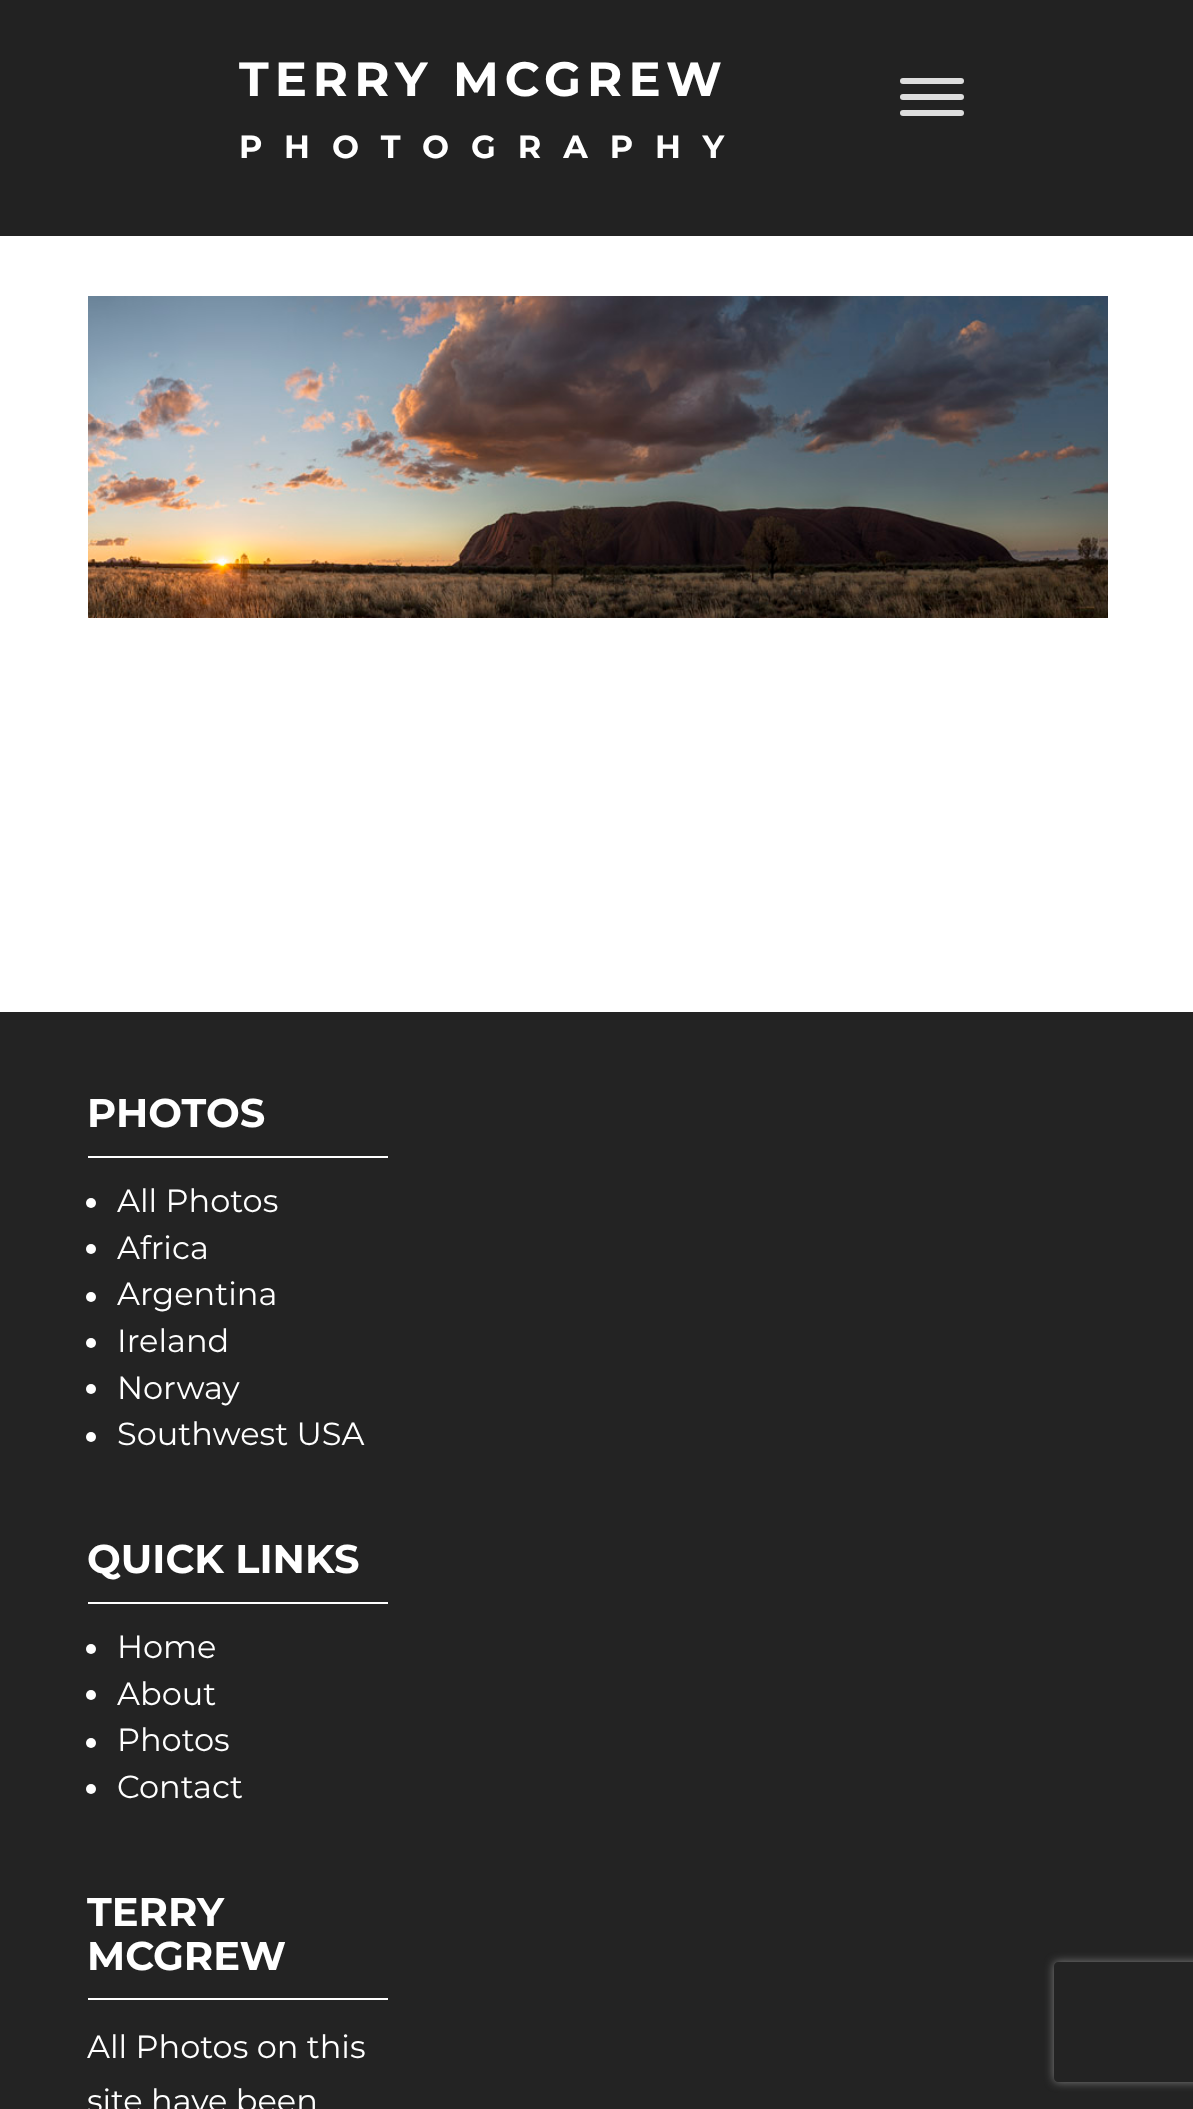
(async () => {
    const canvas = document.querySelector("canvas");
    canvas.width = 1193;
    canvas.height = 2109;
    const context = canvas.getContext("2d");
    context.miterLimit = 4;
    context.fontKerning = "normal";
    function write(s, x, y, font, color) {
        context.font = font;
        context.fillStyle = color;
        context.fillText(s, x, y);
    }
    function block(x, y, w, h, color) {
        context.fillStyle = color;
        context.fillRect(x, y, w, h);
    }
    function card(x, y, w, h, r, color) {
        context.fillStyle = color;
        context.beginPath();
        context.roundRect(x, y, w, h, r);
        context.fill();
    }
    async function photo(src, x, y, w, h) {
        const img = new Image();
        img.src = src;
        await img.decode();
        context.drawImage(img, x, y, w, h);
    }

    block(0, 0, 1193, 2109, "rgb(255, 255, 255)");
    block(0, 0, 1193, 236, "rgb(34, 34, 34)");
    context.letterSpacing = "6px";
    write("TERRY MCGREW", 239, 96, "bold 48px Montserrat", "rgb(255, 255, 255)");
    context.letterSpacing = "22px";
    write("PHOTOGRAPHY", 239, 158, "bold 32px Montserrat", "rgb(255, 255, 255)");
    card(900, 78, 64, 6, 3, "rgb(221, 221, 221)");
    card(900, 94, 64, 6, 3, "rgb(221, 221, 221)");
    card(900, 110, 64, 6, 3, "rgb(221, 221, 221)");
    await photo("media/1.png", 88, 296, 1020, 322);
    block(0, 1012, 1193, 1097, "rgb(35, 35, 35)");
    block(88, 1156, 300, 2, "rgb(255, 255, 255)");
    context.letterSpacing = "0px";
    write("PHOTOS", 87, 1127, "bold 40px Montserrat", "rgb(255, 255, 255)");
    context.beginPath();
    context.arc(91, 1203, 5, 0, Math.PI * 2);
    context.fill();
    write("All Photos", 117, 1212, "32px Montserrat", "rgb(255, 255, 255)");
    context.beginPath();
    context.arc(91, 1249, 5, 0, Math.PI * 2);
    context.fill();
    write("Africa", 117, 1259, "32px Montserrat", "rgb(255, 255, 255)");
    context.beginPath();
    context.arc(91, 1297, 5, 0, Math.PI * 2);
    context.fill();
    write("Argentina", 117, 1305, "32px Montserrat", "rgb(255, 255, 255)");
    context.beginPath();
    context.arc(91, 1343, 5, 0, Math.PI * 2);
    context.fill();
    write("Ireland", 117, 1352, "32px Montserrat", "rgb(255, 255, 255)");
    context.beginPath();
    context.arc(91, 1389, 5, 0, Math.PI * 2);
    context.fill();
    write("Norway", 117, 1399, "32px Montserrat", "rgb(255, 255, 255)");
    context.beginPath();
    context.arc(91, 1437, 5, 0, Math.PI * 2);
    context.fill();
    write("Southwest USA", 117, 1445, "32px Montserrat", "rgb(255, 255, 255)");
    block(88, 1602, 300, 2, "rgb(255, 255, 255)");
    write("QUICK LINKS", 87, 1573, "bold 40px Montserrat", "rgb(255, 255, 255)");
    context.beginPath();
    context.arc(91, 1649, 5, 0, Math.PI * 2);
    context.fill();
    write("Home", 117, 1658, "32px Montserrat", "rgb(255, 255, 255)");
    context.beginPath();
    context.arc(91, 1695, 5, 0, Math.PI * 2);
    context.fill();
    write("About", 117, 1705, "32px Montserrat", "rgb(255, 255, 255)");
    context.beginPath();
    context.arc(91, 1743, 5, 0, Math.PI * 2);
    context.fill();
    write("Photos", 117, 1751, "32px Montserrat", "rgb(255, 255, 255)");
    context.beginPath();
    context.arc(91, 1789, 5, 0, Math.PI * 2);
    context.fill();
    write("Contact", 117, 1798, "32px Montserrat", "rgb(255, 255, 255)");
    block(88, 1998, 300, 2, "rgb(255, 255, 255)");
    write("TERRY", 87, 1926, "bold 40px Montserrat", "rgb(255, 255, 255)");
    write("MCGREW", 87, 1970, "bold 40px Montserrat", "rgb(255, 255, 255)");
    write("All Photos on this", 87, 2058, "32px Montserrat", "rgb(255, 255, 255)");
    write("site have been", 87, 2112, "32px Montserrat", "rgb(255, 255, 255)");
    context.save();
    context.beginPath();
    context.moveTo(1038, 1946);
    context.lineTo(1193, 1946);
    context.lineTo(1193, 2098);
    context.lineTo(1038, 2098);
    context.closePath();
    context.moveTo(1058, 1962);
    context.lineTo(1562, 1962);
    context.bezierCurveTo(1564, 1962, 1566, 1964, 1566, 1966);
    context.lineTo(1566, 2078);
    context.bezierCurveTo(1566, 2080, 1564, 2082, 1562, 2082);
    context.lineTo(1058, 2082);
    context.bezierCurveTo(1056, 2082, 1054, 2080, 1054, 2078);
    context.lineTo(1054, 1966);
    context.bezierCurveTo(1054, 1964, 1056, 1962, 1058, 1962);
    context.closePath();
    context.clip("evenodd");
    context.fillStyle = "rgb(128, 128, 128)";
    context.filter = "blur(5px)";
    context.beginPath();
    context.roundRect(1054, 1962, 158, 120, 4);
    context.fill();
    context.filter = "none";
    context.restore();
})();
